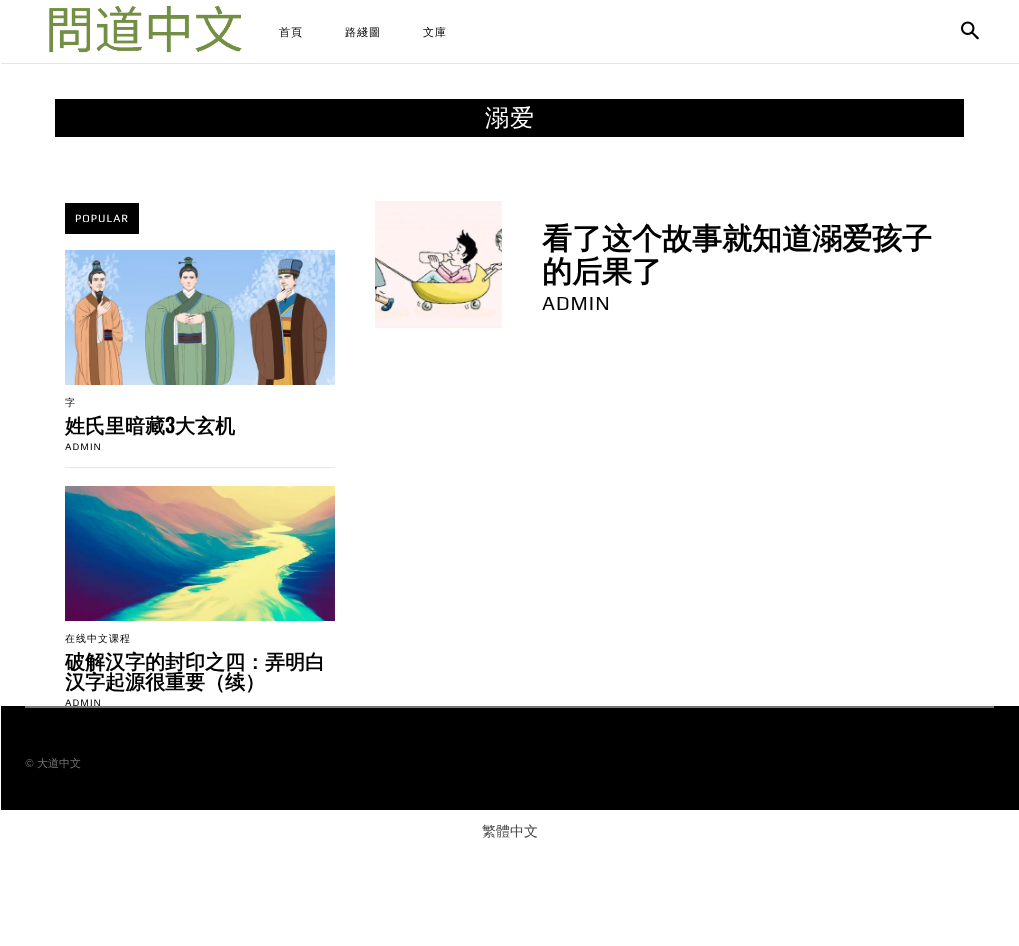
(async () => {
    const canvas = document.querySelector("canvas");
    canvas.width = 1019;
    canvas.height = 946;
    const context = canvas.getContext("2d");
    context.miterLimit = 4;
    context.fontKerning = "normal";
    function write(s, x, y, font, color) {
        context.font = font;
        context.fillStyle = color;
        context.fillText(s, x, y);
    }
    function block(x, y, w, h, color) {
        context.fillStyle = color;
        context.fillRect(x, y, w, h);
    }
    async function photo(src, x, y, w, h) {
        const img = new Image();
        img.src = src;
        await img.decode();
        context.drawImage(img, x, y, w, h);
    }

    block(0, 0, 1019, 946, "rgb(255, 255, 255)");
    await photo("media/1.png", 49, 5, 193, 48);
    context.letterSpacing = "1px";
    write("首頁", 279, 36, "500 11px WenQuanYi Zen Hei", "rgb(0, 0, 0)");
    write("路綫圖", 345, 36, "500 11px WenQuanYi Zen Hei", "rgb(0, 0, 0)");
    write("文庫", 423, 36, "500 11px WenQuanYi Zen Hei", "rgb(0, 0, 0)");
    await photo("media/2.png", 961, 21, 18, 19);
    block(1, 63, 1018, 1, "rgb(229, 229, 229)");
    block(55, 99, 909, 38, "rgb(0, 0, 0)");
    write("溺爱", 485, 126, "500 24px WenQuanYi Zen Hei", "rgb(255, 255, 255)");
    block(65, 203, 74, 31, "rgb(0, 0, 0)");
    write("POPULAR", 75, 222, "11px Play", "rgb(255, 255, 255)");
    await photo("media/3.png", 65, 250, 270, 135);
    write("字", 65, 406, "500 10px WenQuanYi Zen Hei", "rgb(0, 0, 0)");
    context.letterSpacing = "0px";
    write("姓氏里暗藏", 65, 433, "bold 20px WenQuanYi Zen Hei", "rgb(0, 0, 0)");
    write("3", 165, 433, "600 20px Oswald", "rgb(0, 0, 0)");
    write("大玄机", 175, 433, "bold 20px WenQuanYi Zen Hei", "rgb(0, 0, 0)");
    context.letterSpacing = "1px";
    write("ADMIN", 65, 450, "10px Play", "rgb(0, 0, 0)");
    block(65, 467, 270, 1, "rgb(229, 229, 229)");
    await photo("media/4.png", 65, 486, 270, 135);
    write("在线中文课程", 65, 642, "500 10px WenQuanYi Zen Hei", "rgb(0, 0, 0)");
    context.letterSpacing = "0px";
    write("破解汉字的封印之四：弄明白", 65, 669, "bold 20px WenQuanYi Zen Hei", "rgb(0, 0, 0)");
    write("汉字起源很重要（续）", 65, 689, "bold 20px WenQuanYi Zen Hei", "rgb(0, 0, 0)");
    context.letterSpacing = "1px";
    write("ADMIN", 65, 706, "10px Play", "rgb(0, 0, 0)");
    await photo("media/5.png", 375, 201, 127, 127);
    context.letterSpacing = "0px";
    write("看了这个故事就知道溺爱孩子", 542, 249, "bold 30px WenQuanYi Zen Hei", "rgb(0, 0, 0)");
    write("的后果了", 542, 282, "bold 30px WenQuanYi Zen Hei", "rgb(0, 0, 0)");
    context.letterSpacing = "1px";
    write("ADMIN", 542, 310, "20px Play", "rgb(0, 0, 0)");
    block(1, 706, 1018, 104, "rgb(0, 0, 0)");
    block(25, 706, 969, 2, "rgb(117, 117, 117)");
    context.letterSpacing = "0px";
    write("©", 25, 767, "100 11px Montserrat", "rgb(117, 117, 117)");
    write("大道中文", 37, 767, "500 11px WenQuanYi Zen Hei", "rgb(117, 117, 117)");
    write("繁體中文", 482, 836, "500 14px WenQuanYi Zen Hei", "rgb(68, 68, 68)");
})();
